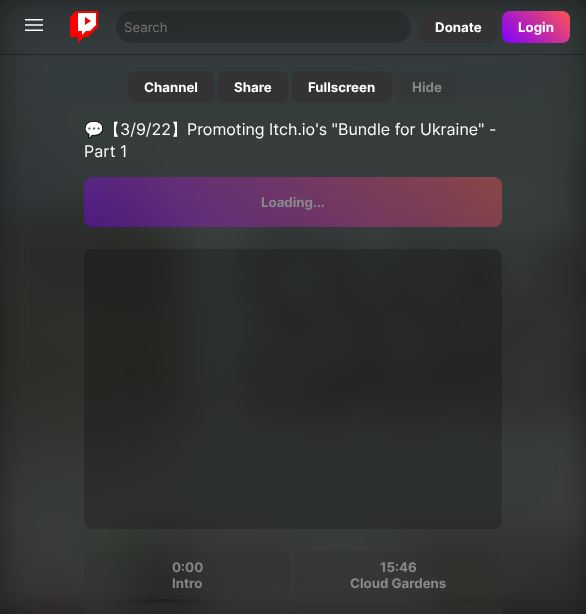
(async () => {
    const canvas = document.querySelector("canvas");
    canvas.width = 586;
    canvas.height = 614;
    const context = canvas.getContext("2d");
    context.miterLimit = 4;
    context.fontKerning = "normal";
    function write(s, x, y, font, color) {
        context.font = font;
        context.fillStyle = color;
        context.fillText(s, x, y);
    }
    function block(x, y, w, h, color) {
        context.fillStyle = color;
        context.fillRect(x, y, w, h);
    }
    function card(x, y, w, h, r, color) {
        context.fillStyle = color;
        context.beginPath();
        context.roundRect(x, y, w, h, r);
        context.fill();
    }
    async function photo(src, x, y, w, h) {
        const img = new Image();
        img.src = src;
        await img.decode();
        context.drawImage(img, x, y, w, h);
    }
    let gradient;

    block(0, 0, 586, 614, "rgb(26, 26, 26)");
    await photo("media/3.png", 0, 0, 586, 614);
    block(0, 54, 586, 1, "rgba(0, 0, 0, 0.3)");
    await photo("media/1.png", 25, 19, 18, 12);
    await photo("media/2.png", 70, 11, 28, 32);
    card(116, 11, 295, 32, 16, "rgba(0, 0, 0, 0.2)");
    write("Search", 124, 32, "13.25px Inter", "rgb(117, 117, 117)");
    card(419, 11, 79, 32, 8, "rgb(51, 51, 51)");
    write("Donate", 435, 32, "bold 13.25px Inter", "rgb(255, 255, 255)");
    gradient = context.createLinearGradient(511, 52, 561, 2);
    gradient.addColorStop(0, "rgb(128, 0, 255)");
    gradient.addColorStop(1, "rgb(255, 83, 83)");
    context.fillStyle = gradient;
    context.beginPath();
    context.roundRect(502, 11, 68, 32, 8);
    context.fill();
    write("Login", 518, 32, "bold 13.25px Inter", "rgb(255, 255, 255)");
    card(128, 71, 86, 32, 8, "rgb(51, 51, 51)");
    write("Channel", 144, 92, "bold 13.25px Inter", "rgb(255, 255, 255)");
    card(218, 71, 70, 32, 8, "rgb(51, 51, 51)");
    write("Share", 234, 92, "bold 13.25px Inter", "rgb(255, 255, 255)");
    card(292, 71, 100, 32, 8, "rgb(51, 51, 51)");
    write("Fullscreen", 308, 92, "bold 13.25px Inter", "rgb(255, 255, 255)");
    card(396, 71, 62, 32, 8, "rgb(52, 56, 57)");
    write("Hide", 412, 92, "bold 13.25px Inter", "rgb(134, 138, 138)");
    write("💬", 84, 135, "16px Noto Color Emoji", "rgb(255, 255, 255)");
    write("【", 104, 135, "500 16px WenQuanYi Zen Hei", "rgb(255, 255, 255)");
    write("3/9/22", 120, 135, "16px Inter", "rgb(255, 255, 255)");
    write("】", 171, 135, "500 16px WenQuanYi Zen Hei", "rgb(255, 255, 255)");
    write("Promoting Itch.io's \"Bundle for Ukraine\" -", 187, 135, "16px Inter", "rgb(255, 255, 255)");
    write("Part 1", 84, 157, "16px Inter", "rgb(255, 255, 255)");
    gradient = context.createLinearGradient(176, 319, 410, 85);
    gradient.addColorStop(0, "rgba(128, 0, 255, 0.4)");
    gradient.addColorStop(1, "rgba(255, 83, 83, 0.4)");
    context.fillStyle = gradient;
    context.beginPath();
    context.roundRect(84, 177, 418, 50, 8);
    context.fill();
    write("Loading...", 261, 207, "bold 13.25px Inter", "rgb(134, 138, 138)");
    card(84, 249, 418, 280, 8, "rgba(0, 0, 0, 0.2)");
    card(84, 551, 207, 48, 8, "rgba(51, 51, 51, 0.4)");
    write("0:00", 172, 572, "bold 13.25px Inter", "rgb(131, 132, 131)");
    write("Intro", 172, 588, "bold 13.25px Inter", "rgb(131, 132, 131)");
    card(295, 551, 207, 48, 8, "rgba(51, 51, 51, 0.4)");
    write("15:46", 380, 572, "bold 13.25px Inter", "rgb(134, 138, 138)");
    write("Cloud Gardens", 350, 588, "bold 13.25px Inter", "rgb(134, 138, 138)");
    card(84, 603, 207, 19, 8, "rgba(51, 51, 51, 0.4)");
    card(295, 603, 207, 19, 8, "rgba(51, 51, 51, 0.4)");
})();
